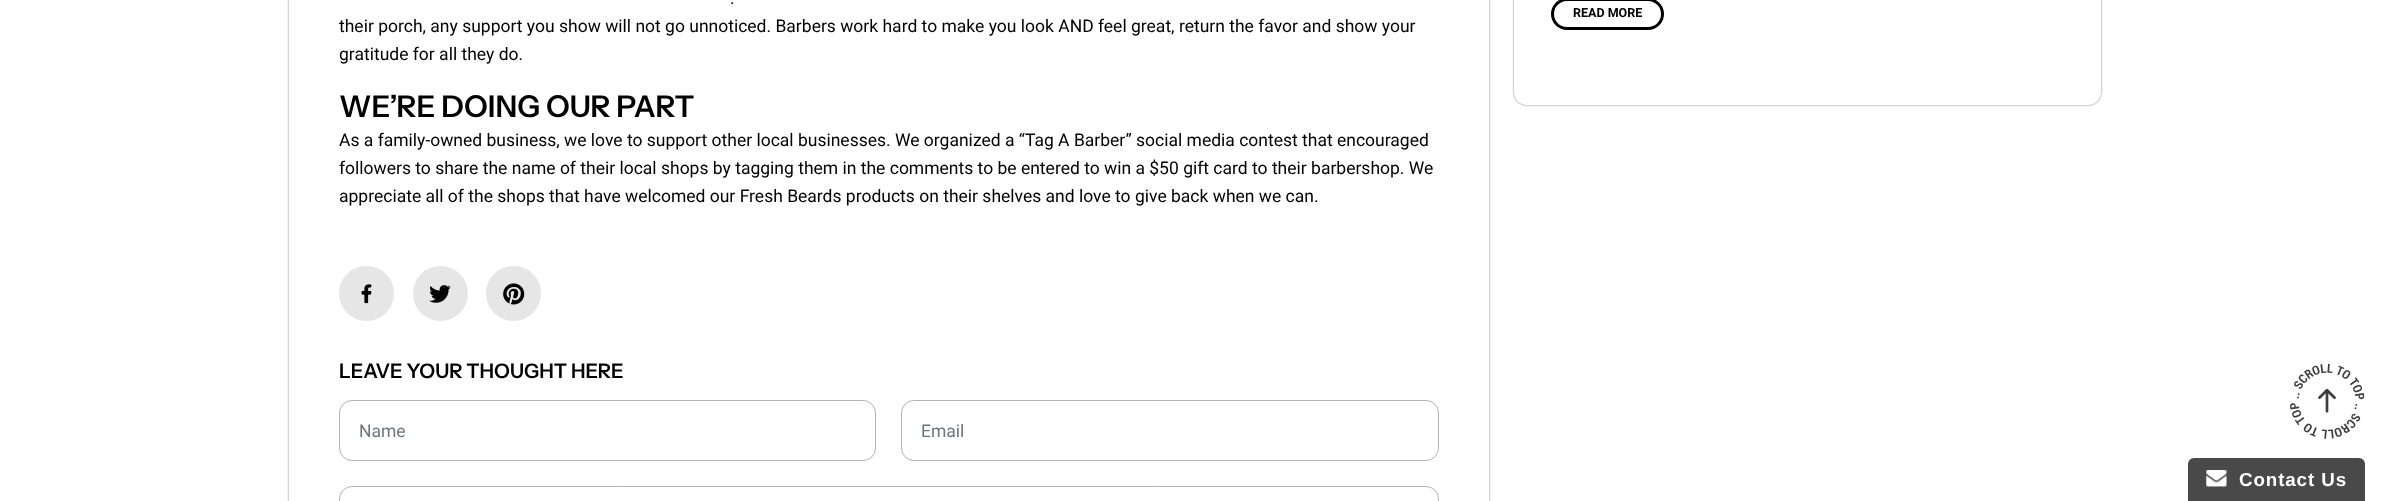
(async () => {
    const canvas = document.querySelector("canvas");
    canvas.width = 2390;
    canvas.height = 501;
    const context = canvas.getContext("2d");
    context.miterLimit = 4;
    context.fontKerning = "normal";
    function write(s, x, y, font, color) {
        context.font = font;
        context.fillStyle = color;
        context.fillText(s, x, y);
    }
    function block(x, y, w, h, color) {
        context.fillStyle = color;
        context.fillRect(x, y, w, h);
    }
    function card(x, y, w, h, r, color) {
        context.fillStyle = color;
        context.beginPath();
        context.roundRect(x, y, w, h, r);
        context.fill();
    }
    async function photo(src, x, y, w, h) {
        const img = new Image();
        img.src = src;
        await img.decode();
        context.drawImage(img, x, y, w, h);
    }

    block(0, 0, 2390, 501, "rgb(255, 255, 255)");
    context.fillStyle = "rgba(0, 0, 0, 0.5)";
    context.filter = "blur(1px)";
    context.beginPath();
    context.roundRect(289, -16, 1200, 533, 13);
    context.fill();
    context.filter = "none";
    block(289, 0, 1200, 501, "rgb(255, 255, 255)");
    write(".", 730, 4, "17.5px Roboto", "rgb(0, 0, 0)");
    write("their porch, any support you show will not go unnoticed. Barbers work hard to make you look AND feel great, return the favor and show your", 339, 32, "17.5px Roboto", "rgb(0, 0, 0)");
    write("gratitude for all they do.", 339, 60, "17.5px Roboto", "rgb(0, 0, 0)");
    write("WE’RE DOING OUR PART", 339, 117, "600 30px Instrument Sans", "rgb(0, 0, 0)");
    write("As a family-owned business, we love to support other local businesses. We organized a “Tag A Barber” social media contest that encouraged", 339, 146, "17.5px Roboto", "rgb(0, 0, 0)");
    write("followers to share the name of their local shops by tagging them in the comments to be entered to win a $50 gift card to their barbershop. We", 339, 174, "17.5px Roboto", "rgb(0, 0, 0)");
    write("appreciate all of the shops that have welcomed our Fresh Beards products on their shelves and love to give back when we can.", 339, 202, "17.5px Roboto", "rgb(0, 0, 0)");
    context.fillStyle = "rgb(230, 230, 230)";
    context.beginPath();
    context.arc(366.5, 293.5, 27.5, 0, Math.PI * 2);
    context.fill();
    await photo("media/1.png", 361, 284, 11, 20);
    context.beginPath();
    context.arc(440.5, 293.5, 27.5, 0, Math.PI * 2);
    context.fill();
    await photo("media/2.png", 429, 285, 22, 18);
    context.beginPath();
    context.arc(513.5, 293.5, 27.5, 0, Math.PI * 2);
    context.fill();
    await photo("media/3.png", 503, 283, 22, 22);
    write("LEAVE YOUR THOUGHT HERE", 339, 378, "600 20px Instrument Sans", "rgb(0, 0, 0)");
    context.beginPath();
    context.roundRect(339.5, 400.5, 536, 60, 12.5);
    context.strokeStyle = "rgb(179, 179, 179)";
    context.stroke();
    write("Name", 359, 437, "17.5px Roboto", "rgb(108, 117, 125)");
    context.beginPath();
    context.roundRect(901.5, 400.5, 537, 60, 12.5);
    context.stroke();
    write("Email", 921, 437, "17.5px Roboto", "rgb(108, 117, 125)");
    context.beginPath();
    context.roundRect(339.5, 486.5, 1099, 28, 12.5);
    context.stroke();
    context.fillStyle = "rgba(0, 0, 0, 0.5)";
    context.filter = "blur(1px)";
    context.beginPath();
    context.roundRect(1514, -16, 587, 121, 13);
    context.fill();
    context.filter = "none";
    card(1514, -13, 587, 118, 13, "rgb(255, 255, 255)");
    context.beginPath();
    context.roundRect(1552.5, -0.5, 110, 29, 14.5);
    context.strokeStyle = "rgb(0, 0, 0)";
    context.lineWidth = 3;
    context.stroke();
    write("READ MORE", 1573, 17, "bold 12.5px Roboto", "rgb(0, 0, 0)");
    await photo("media/5.png", 2318, 389, 18, 24);
    await photo("media/4.png", 2290, 364, 75, 75);
    context.fillStyle = "rgb(73, 73, 73)";
    context.beginPath();
    context.roundRect(2188, 458, 177, 43, [6, 6, 0, 0]);
    context.fill();
    await photo("media/6.png", 2206, 470, 21, 17);
    context.letterSpacing = "0.9px";
    write("Contact Us", 2239, 486, "bold 18.75px Liberation Sans", "rgb(255, 255, 255)");
})();
